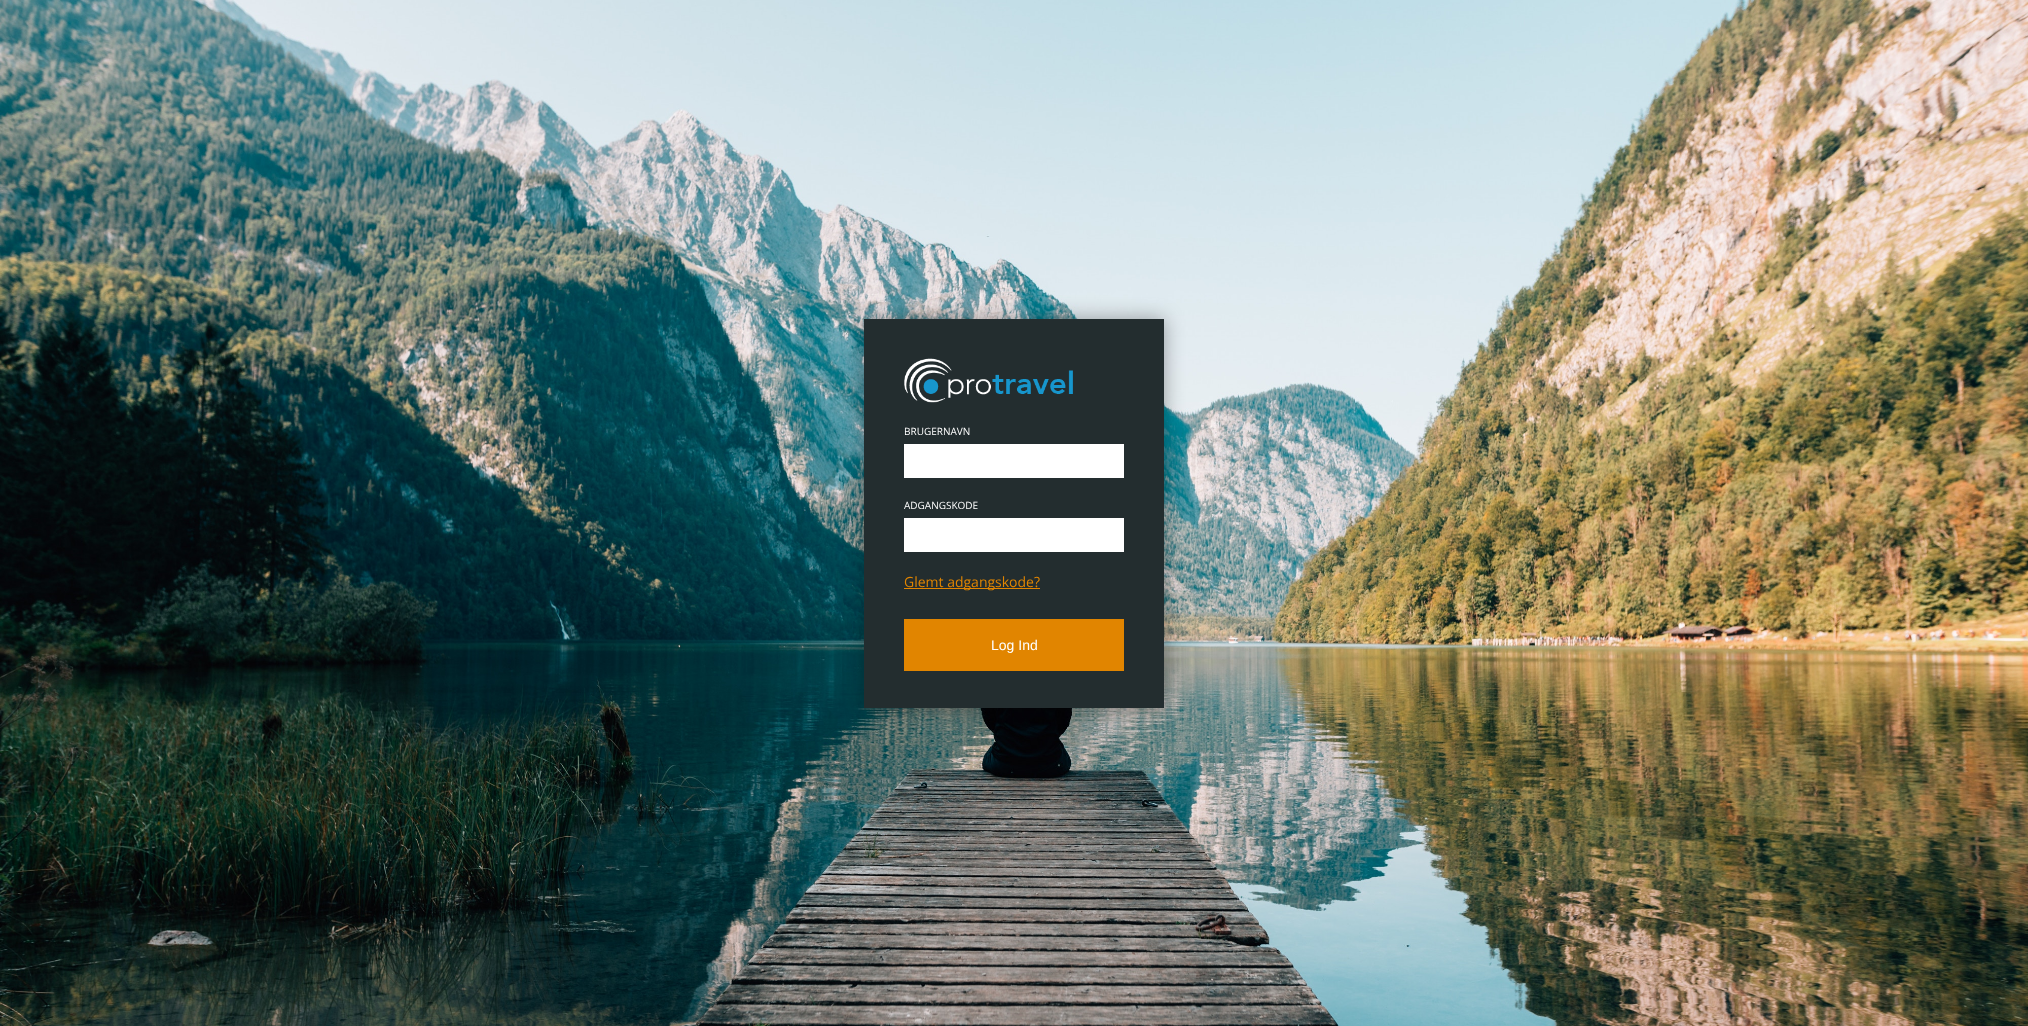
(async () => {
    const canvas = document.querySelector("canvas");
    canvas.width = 2028;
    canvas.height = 1026;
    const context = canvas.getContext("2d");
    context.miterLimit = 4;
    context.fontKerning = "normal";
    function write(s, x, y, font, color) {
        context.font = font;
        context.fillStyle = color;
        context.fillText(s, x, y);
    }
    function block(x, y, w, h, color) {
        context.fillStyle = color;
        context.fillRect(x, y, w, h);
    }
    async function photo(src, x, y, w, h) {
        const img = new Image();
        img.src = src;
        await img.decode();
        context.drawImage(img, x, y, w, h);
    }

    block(0, 0, 2028, 1026, "rgb(255, 255, 255)");
    await photo("media/1.png", 0, 0, 2028, 1026);
    context.fillStyle = "rgba(0, 0, 0, 0.35)";
    context.filter = "blur(10px)";
    context.beginPath();
    context.rect(864, 319, 300, 389);
    context.fill();
    context.filter = "none";
    block(864, 319, 300, 389, "rgb(35, 45, 47)");
    await photo("media/2.png", 904, 358, 169, 45);
    write("BRUGERNAVN", 904, 435, "10px Open Sans", "rgb(255, 255, 255)");
    block(904, 444, 220, 34, "rgb(255, 255, 255)");
    write("ADGANGSKODE", 904, 509, "10px Open Sans", "rgb(255, 255, 255)");
    block(904, 518, 220, 34, "rgb(255, 255, 255)");
    block(904, 588, 136, 1, "rgb(225, 133, 0)");
    write("Glemt adgangskode?", 904, 587, "14px Open Sans", "rgb(225, 133, 0)");
    block(904, 619, 220, 52, "rgb(225, 133, 0)");
    write("Log Ind", 991, 650, "14px Liberation Sans", "rgb(255, 255, 255)");
})();
